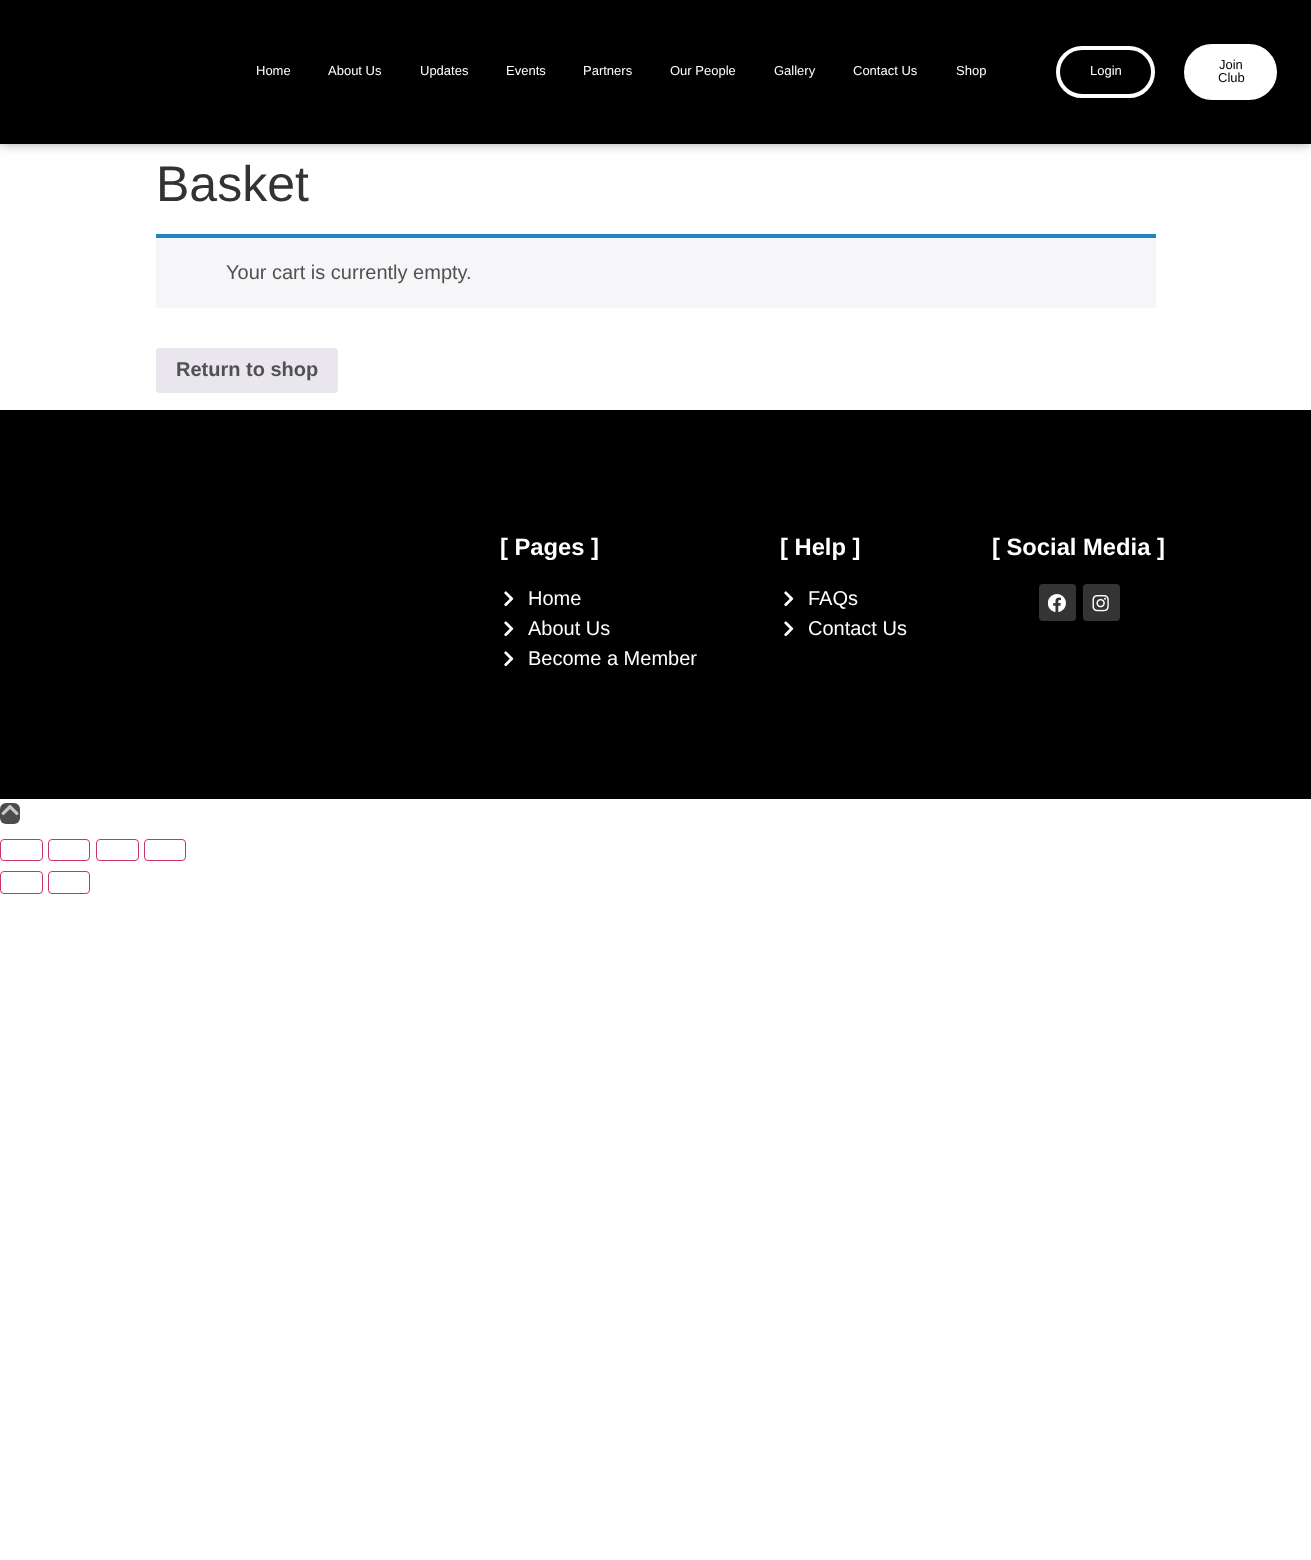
(async () => {
    const canvas = document.querySelector("canvas");
    canvas.width = 1311;
    canvas.height = 1560;
    const context = canvas.getContext("2d");
    context.miterLimit = 4;
    context.fontKerning = "normal";
    function write(s, x, y, font, color) {
        context.font = font;
        context.fillStyle = color;
        context.fillText(s, x, y);
    }
    function block(x, y, w, h, color) {
        context.fillStyle = color;
        context.fillRect(x, y, w, h);
    }
    function card(x, y, w, h, r, color) {
        context.fillStyle = color;
        context.beginPath();
        context.roundRect(x, y, w, h, r);
        context.fill();
    }
    async function photo(src, x, y, w, h) {
        const img = new Image();
        img.src = src;
        await img.decode();
        context.drawImage(img, x, y, w, h);
    }

    block(0, 0, 1311, 1560, "rgb(255, 255, 255)");
    context.fillStyle = "rgba(0, 0, 0, 0.35)";
    context.filter = "blur(6px)";
    context.beginPath();
    context.rect(0, 0, 1311, 144);
    context.fill();
    context.filter = "none";
    block(0, 0, 1311, 144, "rgb(0, 0, 0)");
    write("Home", 256, 75, "13px Liberation Sans", "rgb(255, 255, 255)");
    write("About Us", 328, 75, "13px Liberation Sans", "rgb(255, 255, 255)");
    write("Updates", 420, 75, "13px Liberation Sans", "rgb(255, 255, 255)");
    write("Events", 506, 75, "13px Liberation Sans", "rgb(255, 255, 255)");
    write("Partners", 583, 75, "13px Liberation Sans", "rgb(255, 255, 255)");
    write("Our People", 670, 75, "13px Liberation Sans", "rgb(255, 255, 255)");
    write("Gallery", 774, 75, "13px Liberation Sans", "rgb(255, 255, 255)");
    write("Contact Us", 853, 75, "13px Liberation Sans", "rgb(255, 255, 255)");
    write("Shop", 956, 75, "13px Liberation Sans", "rgb(255, 255, 255)");
    context.beginPath();
    context.roundRect(1058, 48, 95, 48, 24);
    context.strokeStyle = "rgb(255, 255, 255)";
    context.lineWidth = 4;
    context.stroke();
    write("Login", 1090, 75, "13px Liberation Sans", "rgb(255, 255, 255)");
    context.beginPath();
    context.roundRect(1182, 42, 97, 60, 30);
    context.fill();
    context.strokeStyle = "rgb(0, 0, 0)";
    context.stroke();
    write("Join", 1219, 69, "13px Liberation Sans", "rgb(0, 0, 0)");
    write("Club", 1218, 82, "13px Liberation Sans", "rgb(0, 0, 0)");
    write("Basket", 156, 201, "50px Liberation Sans", "rgb(51, 51, 51)");
    block(156, 238, 1000, 70, "rgb(246, 245, 248)");
    block(156, 234, 1000, 4, "rgb(30, 133, 190)");
    write("Your cart is currently empty.", 226, 279, "20px Liberation Sans", "rgb(81, 81, 81)");
    card(156, 348, 182, 45, 4, "rgb(233, 230, 237)");
    write("Return to shop", 176, 376, "bold 20px Liberation Sans", "rgb(81, 81, 81)");
    block(0, 410, 1311, 389, "rgb(0, 0, 0)");
    write("[ Pages ]", 500, 555, "bold 23.75px Liberation Sans", "rgb(255, 255, 255)");
    await photo("media/1.png", 504, 591, 10, 16);
    write("Home", 528, 605, "20px Liberation Sans", "rgb(255, 255, 255)");
    await photo("media/1.png", 504, 621, 10, 16);
    write("About Us", 528, 635, "20px Liberation Sans", "rgb(255, 255, 255)");
    await photo("media/1.png", 504, 651, 10, 16);
    write("Become a Member", 528, 665, "20px Liberation Sans", "rgb(255, 255, 255)");
    write("[ Help ]", 780, 555, "bold 23.75px Liberation Sans", "rgb(255, 255, 255)");
    await photo("media/1.png", 784, 591, 10, 16);
    write("FAQs", 808, 605, "20px Liberation Sans", "rgb(255, 255, 255)");
    await photo("media/1.png", 784, 621, 10, 16);
    write("Contact Us", 808, 635, "20px Liberation Sans", "rgb(255, 255, 255)");
    write("[ Social Media ]", 992, 555, "bold 23.75px Liberation Sans", "rgb(255, 255, 255)");
    card(1039, 584, 37, 37, 4, "rgb(52, 52, 52)");
    await photo("media/2.png", 1048, 594, 18, 18);
    card(1083, 584, 37, 37, 4, "rgb(52, 52, 52)");
    await photo("media/3.png", 1092, 595, 17, 17);
    card(0, 803, 20, 21, 6, "rgb(77, 77, 77)");
    await photo("media/4.png", 1, 804, 18, 12);
    context.beginPath();
    context.roundRect(0.5, 839.5, 42, 21, 3.5);
    context.strokeStyle = "rgb(204, 51, 102)";
    context.lineWidth = 1;
    context.stroke();
    context.beginPath();
    context.roundRect(48.5, 839.5, 41, 21, 3.5);
    context.stroke();
    context.beginPath();
    context.roundRect(96.5, 839.5, 42, 21, 3.5);
    context.stroke();
    context.beginPath();
    context.roundRect(144.5, 839.5, 41, 21, 3.5);
    context.stroke();
    context.beginPath();
    context.roundRect(0.5, 871.5, 42, 22, 3.5);
    context.stroke();
    context.beginPath();
    context.roundRect(48.5, 871.5, 41, 22, 3.5);
    context.stroke();
})();
